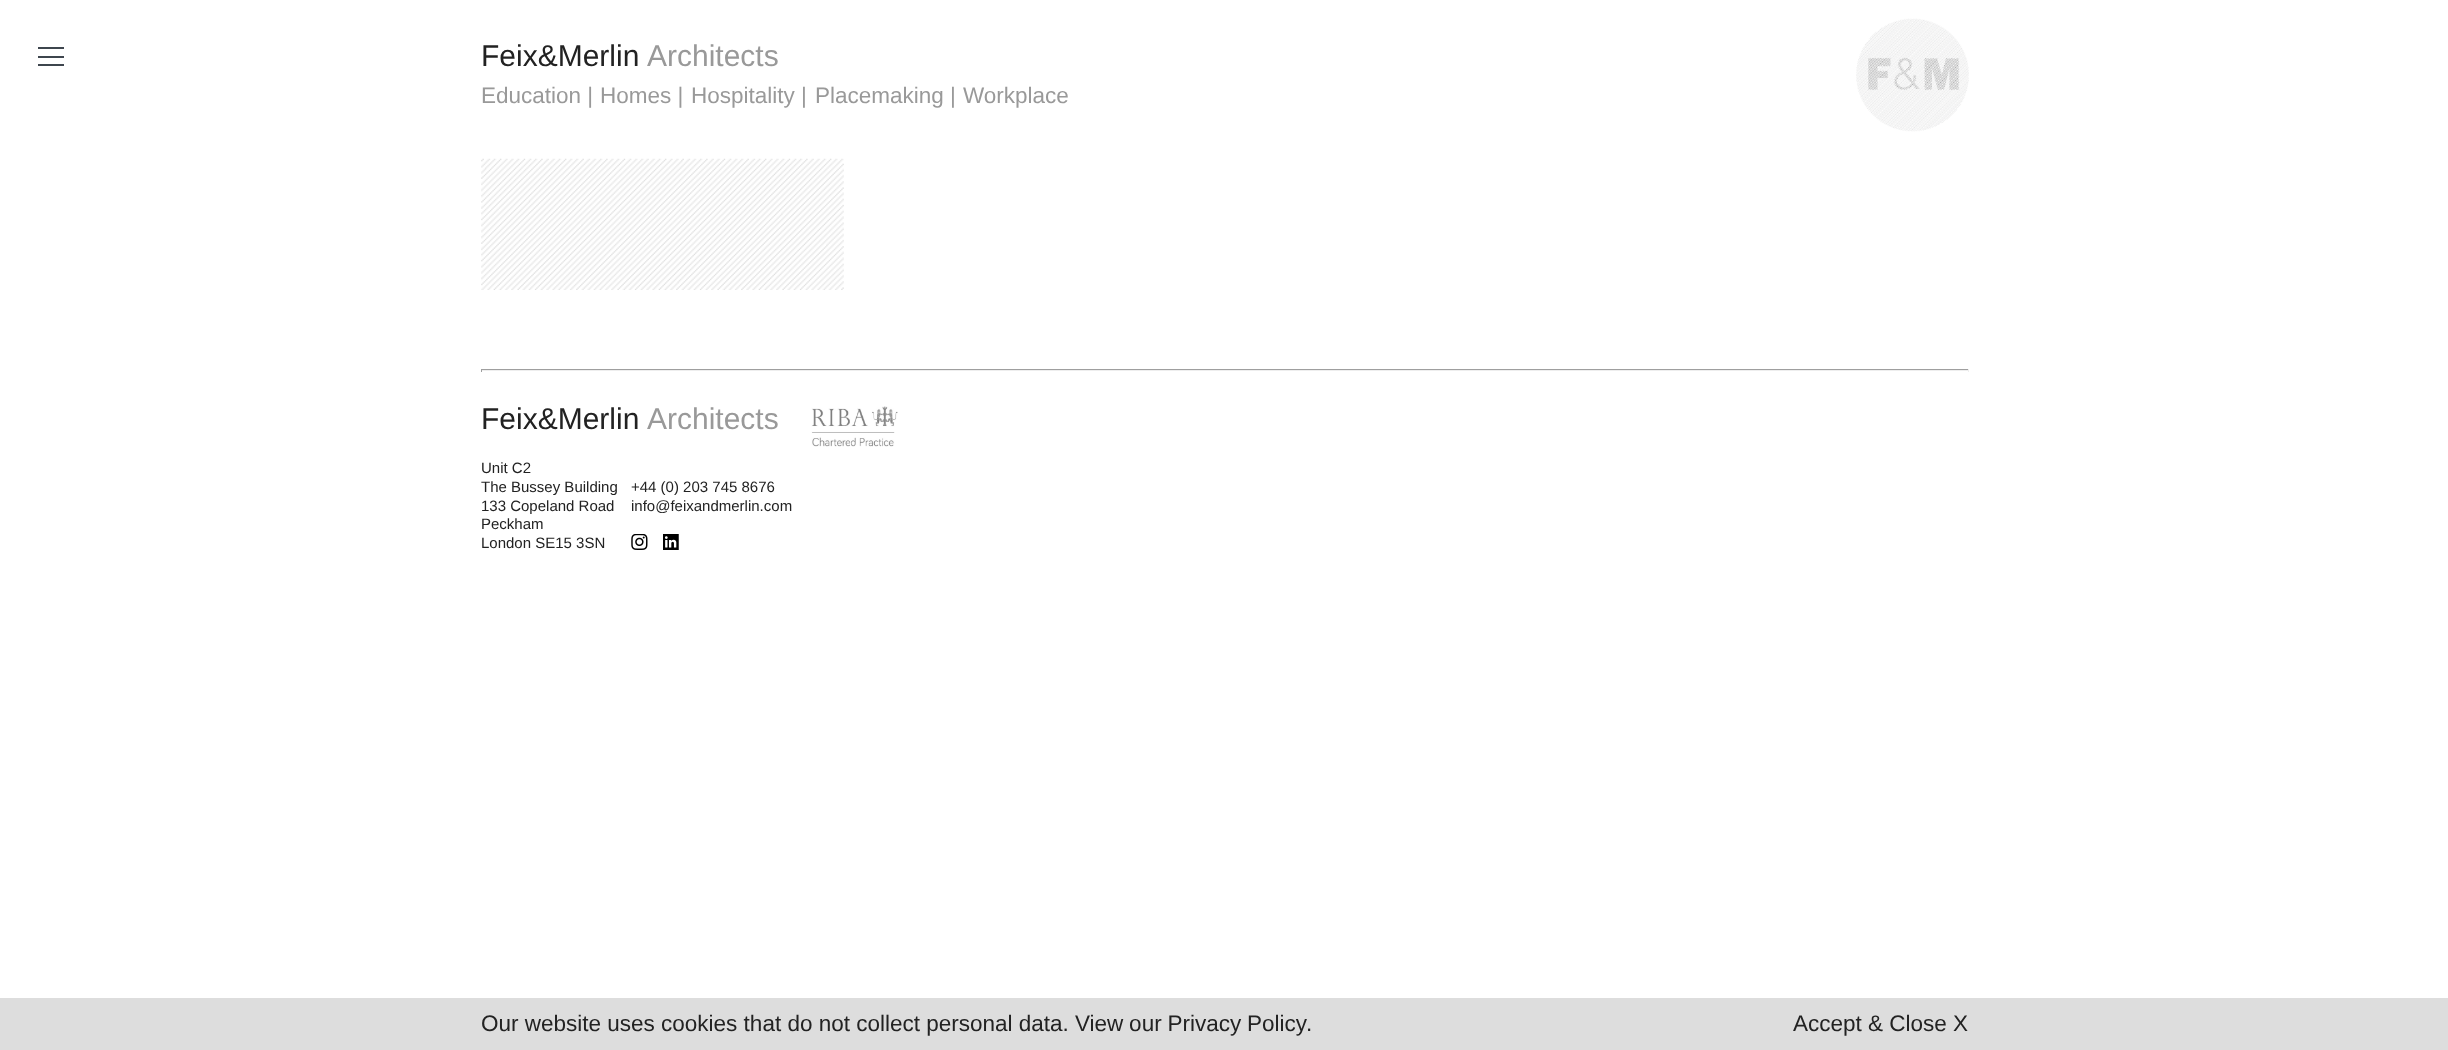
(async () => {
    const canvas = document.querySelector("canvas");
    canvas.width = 2448;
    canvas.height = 1050;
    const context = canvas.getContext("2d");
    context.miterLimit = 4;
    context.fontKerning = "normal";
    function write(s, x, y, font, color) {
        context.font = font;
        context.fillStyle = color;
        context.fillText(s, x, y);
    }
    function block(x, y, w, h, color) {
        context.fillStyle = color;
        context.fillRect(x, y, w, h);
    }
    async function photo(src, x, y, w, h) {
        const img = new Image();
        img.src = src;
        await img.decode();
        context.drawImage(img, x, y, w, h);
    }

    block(0, 0, 2448, 1050, "rgb(255, 255, 255)");
    block(38, 47, 26, 2, "rgb(62, 70, 78)");
    block(38, 56, 26, 2, "rgb(62, 70, 78)");
    block(38, 64, 26, 2, "rgb(62, 70, 78)");
    write("Feix&Merlin", 481, 66, "30px Liberation Sans", "rgb(34, 34, 34)");
    write("Architects", 647, 66, "30px Liberation Sans", "rgb(153, 153, 153)");
    write("Education |", 481, 103, "22.5px Liberation Sans", "rgb(153, 153, 153)");
    write("Homes |", 600, 103, "22.5px Liberation Sans", "rgb(153, 153, 153)");
    write("Hospitality |", 691, 103, "22.5px Liberation Sans", "rgb(153, 153, 153)");
    write("Placemaking |", 815, 103, "22.5px Liberation Sans", "rgb(153, 153, 153)");
    write("Workplace", 963, 103, "22.5px Liberation Sans", "rgb(153, 153, 153)");
    await photo("media/1.png", 1856, 18, 113, 114);
    await photo("media/2.png", 481, 158, 363, 132);
    block(481, 369, 1488, 1, "rgb(159, 159, 159)");
    block(1968, 369, 1, 3, "rgb(238, 238, 238)");
    block(481, 370, 1488, 1, "rgb(238, 238, 238)");
    block(481, 369, 1, 3, "rgb(159, 159, 159)");
    write("Feix&Merlin", 481, 429, "30px Liberation Sans", "rgb(34, 34, 34)");
    write("Architects", 647, 429, "30px Liberation Sans", "rgb(153, 153, 153)");
    await photo("media/3.png", 811, 406, 87, 41);
    write("Unit C2", 481, 473, "15px Liberation Sans", "rgb(34, 34, 34)");
    write("The Bussey Building", 481, 492, "15px Liberation Sans", "rgb(34, 34, 34)");
    write("133 Copeland Road", 481, 511, "15px Liberation Sans", "rgb(34, 34, 34)");
    write("Peckham", 481, 529, "15px Liberation Sans", "rgb(34, 34, 34)");
    write("London SE15 3SN", 481, 548, "15px Liberation Sans", "rgb(34, 34, 34)");
    write("+44 (0) 203 745 8676", 631, 492, "15px Liberation Sans", "rgb(34, 34, 34)");
    write("info@feixandmerlin.com", 631, 511, "15px Liberation Sans", "rgb(34, 34, 34)");
    await photo("media/4.png", 631, 534, 17, 16);
    await photo("media/5.png", 663, 534, 16, 16);
    block(0, 998, 2448, 52, "rgb(221, 221, 221)");
    write("Our website uses cookies that do not collect personal data.", 481, 1031, "22.5px Liberation Sans", "rgb(34, 34, 34)");
    context.wordSpacing = "-0.5px";
    write("View our Privacy Policy", 1075, 1031, "22.5px Liberation Sans", "rgb(34, 34, 34)");
    context.wordSpacing = "0px";
    write(".", 1306, 1031, "22.5px Liberation Sans", "rgb(34, 34, 34)");
    write("Accept & Close X", 1793, 1031, "22.5px Liberation Sans", "rgb(34, 34, 34)");
})();
